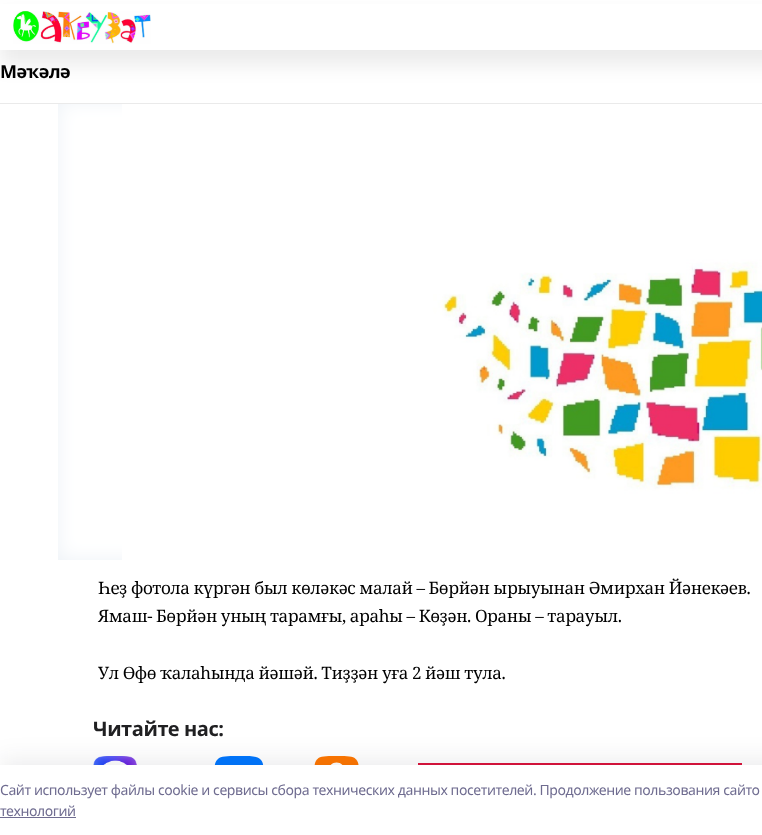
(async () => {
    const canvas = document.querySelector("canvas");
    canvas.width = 762;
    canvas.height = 835;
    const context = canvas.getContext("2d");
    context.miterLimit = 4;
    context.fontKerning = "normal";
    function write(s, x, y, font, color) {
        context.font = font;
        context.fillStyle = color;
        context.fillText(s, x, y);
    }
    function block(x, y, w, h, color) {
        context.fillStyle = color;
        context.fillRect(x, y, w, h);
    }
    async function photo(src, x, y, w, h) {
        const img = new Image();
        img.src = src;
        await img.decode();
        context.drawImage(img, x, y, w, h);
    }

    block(0, 0, 762, 835, "rgb(255, 255, 255)");
    context.fillStyle = "rgba(0, 0, 0, 0.08)";
    context.filter = "blur(10px)";
    context.beginPath();
    context.rect(0, 15, 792, 50);
    context.fill();
    context.filter = "none";
    block(0, 4, 762, 46, "rgb(255, 255, 255)");
    await photo("media/1.png", 13, 11, 138, 33);
    block(0, 103, 762, 1, "rgb(234, 234, 234)");
    context.letterSpacing = "-0.42px";
    write("Мәҡәлә", 0, 78, "bold 18px Noto Sans", "rgb(0, 0, 0)");
    block(58, 104, 64, 456, "rgb(237, 242, 247)");
    await photo("media/2.png", 58, 104, 64, 456);
    await photo("media/3.png", 122, 104, 640, 456);
    write("Һеҙ фотола күргән был көләкәс малай – Бөрйән ырыуынан Әмирхан Йәнекәев.", 98, 594, "17px Noto Serif", "rgb(0, 0, 0)");
    write("Ямаш- Бөрйән уның тарамғы, араһы – Көҙән. Ораны – тарауыл.", 98, 622, "17px Noto Serif", "rgb(0, 0, 0)");
    write("Ул Өфө ҡалаһында йәшәй. Тиҙҙән уға 2 йәш тула.", 98, 679, "17px Noto Serif", "rgb(0, 0, 0)");
    write("Читайте нас:", 93, 736, "bold 20px Noto Sans", "rgb(32, 32, 34)");
    await photo("media/4.png", 93, 756, 44, 9);
    await photo("media/5.png", 214, 756, 50, 9);
    await photo("media/6.png", 314, 756, 45, 9);
    block(418, 763, 324, 2, "rgb(220, 20, 60)");
    context.fillStyle = "rgba(20, 20, 43, 0.08)";
    context.filter = "blur(11.5px)";
    context.beginPath();
    context.rect(0, 759, 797, 70);
    context.fill();
    context.filter = "none";
    block(0, 765, 762, 70, "rgb(255, 255, 255)");
    write("Cайт использует файлы cookie и сервисы сбора технических данных посетителей. Продолжение пользования сайто", 0, 795, "14px Noto Sans", "rgb(111, 108, 144)");
    write("технологий", 0, 816, "14px Noto Sans", "rgb(111, 108, 144)");
    block(0, 817, 76, 1, "rgb(111, 108, 144)");
})();
